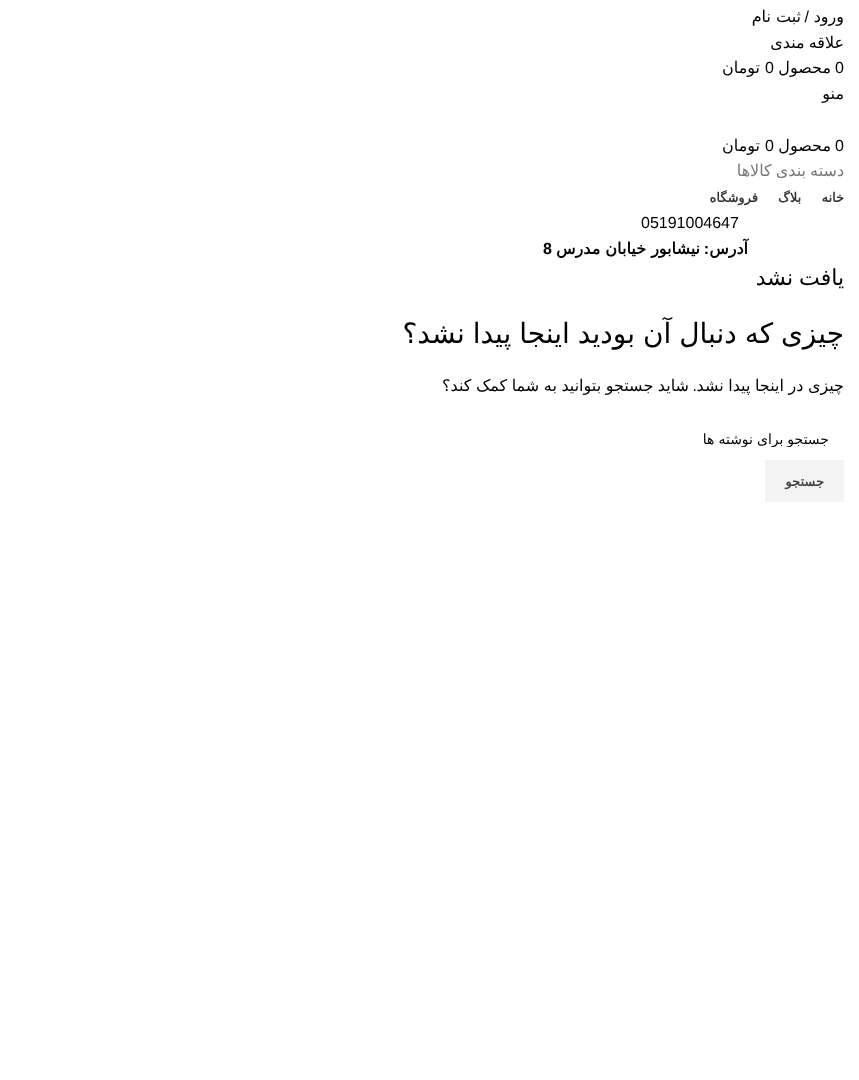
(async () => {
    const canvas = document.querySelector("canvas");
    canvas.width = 859;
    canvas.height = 1080;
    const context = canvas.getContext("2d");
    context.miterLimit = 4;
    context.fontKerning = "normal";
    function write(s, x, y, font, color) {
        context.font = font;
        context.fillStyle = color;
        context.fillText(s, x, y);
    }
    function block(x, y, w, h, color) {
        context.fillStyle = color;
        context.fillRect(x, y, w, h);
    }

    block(0, 0, 859, 1080, "rgb(255, 255, 255)");
    context.direction = "rtl";
    write("ورود", 844, 22, "16px DejaVu Sans", "rgb(0, 0, 0)");
    write("/", 809, 22, "16px Liberation Sans", "rgb(0, 0, 0)");
    write("ثبت نام", 801, 22, "16px DejaVu Sans", "rgb(0, 0, 0)");
    context.wordSpacing = "-1px";
    write("علاقه مندی", 844, 48, "16px DejaVu Sans", "rgb(0, 0, 0)");
    context.wordSpacing = "0px";
    context.direction = "ltr";
    write("0", 835, 73, "16px Liberation Sans", "rgb(0, 0, 0)");
    context.direction = "rtl";
    write("محصول", 831, 73, "16px DejaVu Sans", "rgb(0, 0, 0)");
    context.direction = "ltr";
    write("0", 765, 73, "16px Liberation Sans", "rgb(0, 0, 0)");
    context.direction = "rtl";
    write("تومان", 760, 73, "16px DejaVu Sans", "rgb(0, 0, 0)");
    write("منو", 844, 99, "16px DejaVu Sans", "rgb(0, 0, 0)");
    context.direction = "ltr";
    write("0", 835, 151, "16px Liberation Sans", "rgb(0, 0, 0)");
    context.direction = "rtl";
    write("محصول", 831, 151, "16px DejaVu Sans", "rgb(0, 0, 0)");
    context.direction = "ltr";
    write("0", 765, 151, "16px Liberation Sans", "rgb(0, 0, 0)");
    context.direction = "rtl";
    write("تومان", 760, 151, "16px DejaVu Sans", "rgb(0, 0, 0)");
    context.wordSpacing = "-1px";
    write("دسته بندی کالاها", 844, 176, "16px DejaVu Sans", "rgb(119, 119, 119)");
    context.wordSpacing = "0px";
    write("خانه", 844, 202, "bold 13px DejaVu Sans", "rgb(51, 51, 51)");
    write("بلاگ", 801, 202, "bold 13px DejaVu Sans", "rgb(51, 51, 51)");
    write("فروشگاه", 758, 202, "bold 13px DejaVu Sans", "rgb(51, 51, 51)");
    context.direction = "ltr";
    write("05191004647", 641, 228, "16px Liberation Sans", "rgb(0, 0, 0)");
    context.direction = "rtl";
    write("آدرس", 748, 254, "bold 16px DejaVu Sans", "rgb(0, 0, 0)");
    write(":", 709, 254, "bold 16px Liberation Sans", "rgb(0, 0, 0)");
    write("نیشابور خیابان مدرس", 700, 254, "bold 16px DejaVu Sans", "rgb(0, 0, 0)");
    context.direction = "ltr";
    write("8", 543, 254, "bold 16px Liberation Sans", "rgb(0, 0, 0)");
    context.wordSpacing = "-1px";
    context.direction = "rtl";
    write("یافت نشد", 844, 285, "22px DejaVu Sans", "rgb(0, 0, 0)");
    write("چیزی که دنبال آن بودید اینجا پیدا نشد؟", 844, 343, "28px DejaVu Sans", "rgb(0, 0, 0)");
    context.wordSpacing = "-0.5px";
    write("چیزی در اینجا پیدا نشد", 844, 391, "16px DejaVu Sans", "rgb(0, 0, 0)");
    context.wordSpacing = "0px";
    write(".", 697, 391, "16px Liberation Sans", "rgb(0, 0, 0)");
    context.wordSpacing = "-0.5px";
    write("شاید جستجو بتوانید به شما کمک کند؟", 689, 391, "16px DejaVu Sans", "rgb(0, 0, 0)");
    context.save();
    context.beginPath();
    context.rect(30, 431, 799, 16);
    context.clip();
    write("جستجو برای نوشته ها", 829, 444, "14px DejaVu Sans", "rgb(0, 0, 0)");
    context.restore();
    block(765, 460, 79, 42, "rgb(243, 243, 243)");
    context.wordSpacing = "0px";
    write("جستجو", 824, 486, "bold 13px DejaVu Sans", "rgb(62, 62, 62)");
})();
